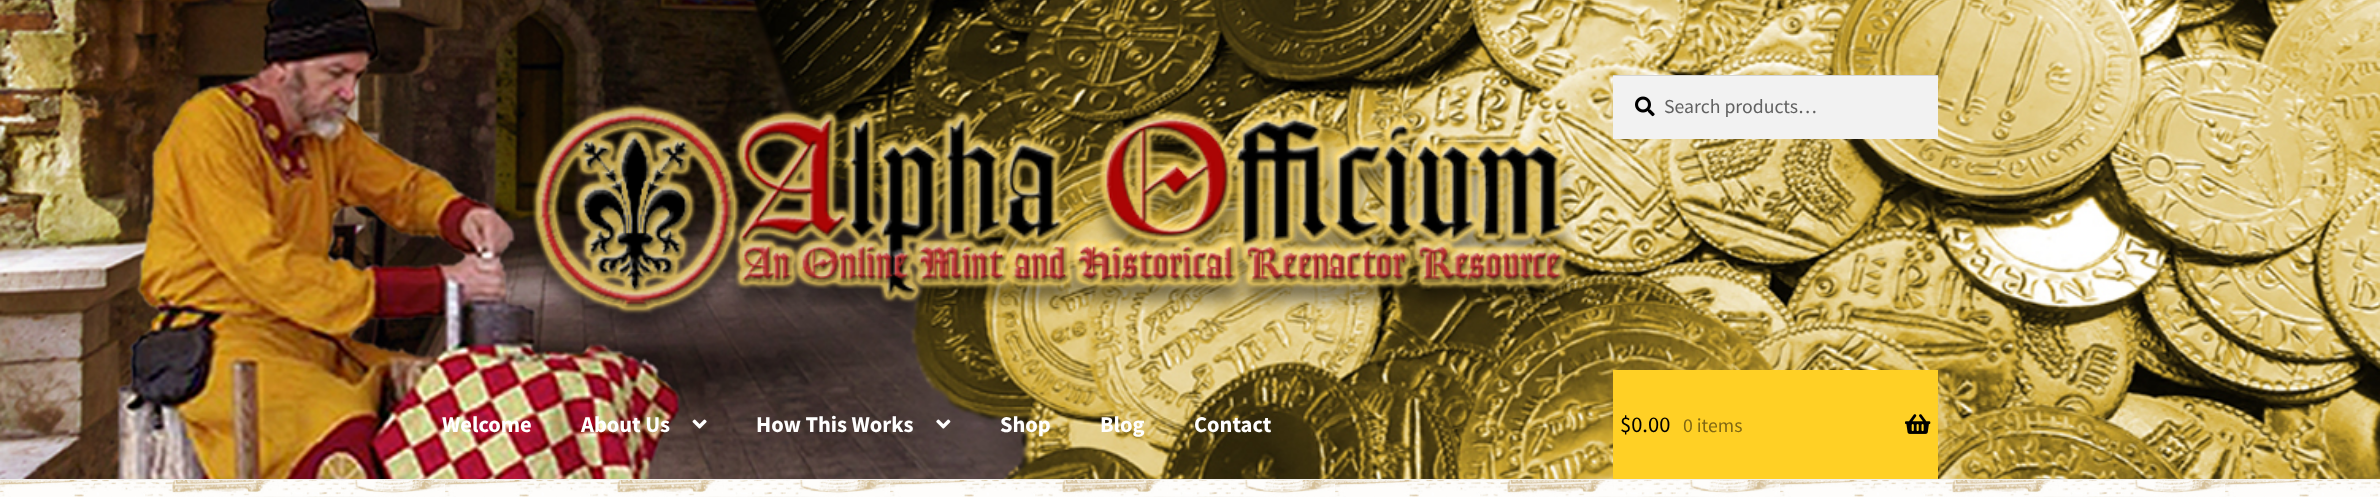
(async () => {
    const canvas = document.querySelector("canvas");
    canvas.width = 2380;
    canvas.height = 497;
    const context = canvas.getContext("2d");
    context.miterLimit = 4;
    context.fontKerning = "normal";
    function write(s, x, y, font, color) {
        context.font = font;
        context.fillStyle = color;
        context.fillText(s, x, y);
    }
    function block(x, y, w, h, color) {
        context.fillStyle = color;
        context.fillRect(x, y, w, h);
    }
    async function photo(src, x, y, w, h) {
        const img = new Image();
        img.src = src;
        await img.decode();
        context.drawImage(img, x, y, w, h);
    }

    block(0, 0, 2380, 497, "rgb(255, 255, 255)");
    await photo("media/1.png", 0, 480, 2380, 17);
    await photo("media/2.png", 0, 0, 2380, 479);
    block(0, 479, 2380, 1, "rgb(240, 240, 240)");
    await photo("media/3.png", 529, 104, 1047, 229);
    block(1613, 76, 325, 63, "rgb(242, 242, 242)");
    await photo("media/4.png", 1635, 96, 20, 21);
    block(1613, 75, 325, 1, "rgb(212, 212, 212)");
    write("Search products…", 1664, 113, "19.75px Source Sans Pro", "rgb(97, 97, 97)");
    write("Welcome", 442, 432, "bold 22.5px Source Sans Pro", "rgb(255, 255, 255)");
    write("About Us", 581, 432, "bold 22.5px Source Sans Pro", "rgb(255, 255, 255)");
    await photo("media/5.png", 692, 419, 15, 10);
    write("How This Works", 756, 432, "bold 22.5px Source Sans Pro", "rgb(255, 255, 255)");
    await photo("media/6.png", 936, 419, 15, 10);
    write("Shop", 1000, 432, "bold 22.5px Source Sans Pro", "rgb(255, 255, 255)");
    write("Blog", 1100, 432, "bold 22.5px Source Sans Pro", "rgb(255, 255, 255)");
    write("Contact", 1194, 432, "bold 22.5px Source Sans Pro", "rgb(255, 255, 255)");
    block(1613, 370, 325, 109, "rgb(255, 208, 37)");
    write("$0.00", 1620, 432, "22.5px Source Sans Pro", "rgb(0, 0, 0)");
    write("0 items", 1683, 432, "19.75px Source Sans Pro", "rgb(128, 104, 19)");
    await photo("media/7.png", 1905, 414, 26, 20);
})();
